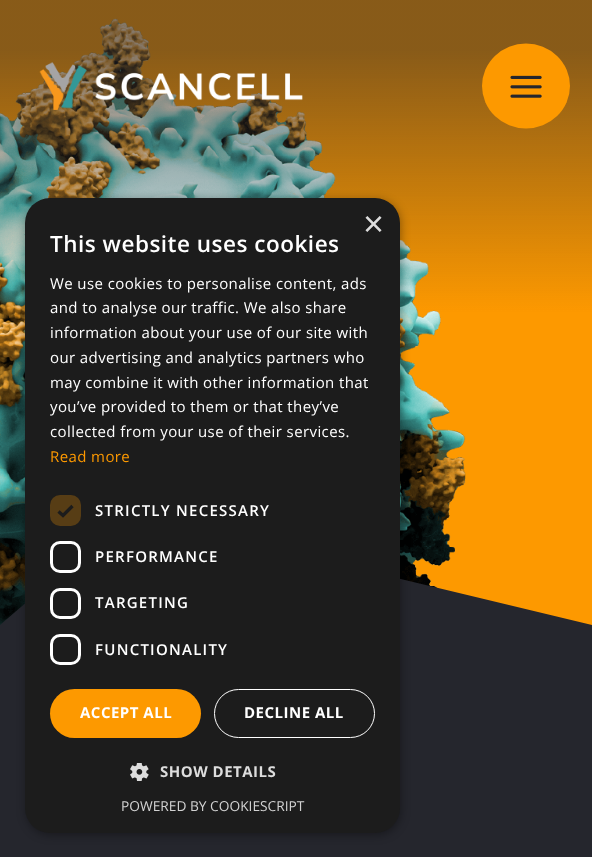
(async () => {
    const canvas = document.querySelector("canvas");
    canvas.width = 592;
    canvas.height = 857;
    const context = canvas.getContext("2d");
    context.miterLimit = 4;
    context.fontKerning = "normal";
    function write(s, x, y, font, color) {
        context.font = font;
        context.fillStyle = color;
        context.fillText(s, x, y);
    }
    function block(x, y, w, h, color) {
        context.fillStyle = color;
        context.fillRect(x, y, w, h);
    }
    function card(x, y, w, h, r, color) {
        context.fillStyle = color;
        context.beginPath();
        context.roundRect(x, y, w, h, r);
        context.fill();
    }
    async function photo(src, x, y, w, h) {
        const img = new Image();
        img.src = src;
        await img.decode();
        context.drawImage(img, x, y, w, h);
    }

    block(0, 0, 592, 857, "rgb(253, 153, 0)");
    await photo("media/1.png", 0, 0, 592, 625);
    context.fillStyle = "rgb(37, 38, 45)";
    context.beginPath();
    context.moveTo(139, 516);
    context.lineTo(592, 625);
    context.lineTo(0, 625);
    context.lineTo(121, 521);
    context.bezierCurveTo(127, 516, 133, 514, 139, 516);
    context.closePath();
    context.fill();
    block(0, 625, 592, 232, "rgb(37, 38, 45)");
    await photo("media/2.png", 39, 62, 264, 48);
    context.fillStyle = "rgb(253, 153, 0)";
    context.beginPath();
    context.ellipse(526, 86, 44, 42.5, 0, 0, Math.PI * 2);
    context.fill();
    await photo("media/3.png", 510, 75, 32, 23);
    context.fillStyle = "rgba(0, 0, 0, 0.35)";
    context.filter = "blur(5px)";
    context.beginPath();
    context.roundRect(26, 200, 375, 635, 25);
    context.fill();
    context.filter = "none";
    card(25, 198, 375, 635, 25, "rgb(28, 28, 28)");
    write("×", 363, 236, "36px Liberation Sans", "rgb(221, 221, 221)");
    context.letterSpacing = "0.5px";
    write("This website uses cookies", 50, 252, "600 22.5px Open Sans", "rgb(255, 255, 255)");
    context.letterSpacing = "0.4px";
    write("We use cookies to personalise content, ads", 50, 289, "15px Open Sans", "rgb(255, 255, 255)");
    write("and to analyse our traffic. We also share", 50, 313, "15px Open Sans", "rgb(255, 255, 255)");
    write("information about your use of our site with", 50, 338, "15px Open Sans", "rgb(255, 255, 255)");
    write("our advertising and analytics partners who", 50, 363, "15px Open Sans", "rgb(255, 255, 255)");
    write("may combine it with other information that", 50, 388, "15px Open Sans", "rgb(255, 255, 255)");
    write("you’ve provided to them or that they’ve", 50, 412, "15px Open Sans", "rgb(255, 255, 255)");
    write("collected from your use of their services.", 50, 437, "15px Open Sans", "rgb(255, 255, 255)");
    write("Read more", 50, 462, "15px Open Sans", "rgb(253, 153, 0)");
    card(50, 495, 31, 31, 10, "rgb(87, 61, 21)");
    context.beginPath();
    context.moveTo(58.5, 511.5);
    context.lineTo(63, 515.5);
    context.lineTo(72.5, 506);
    context.strokeStyle = "rgb(28, 28, 28)";
    context.lineWidth = 3.3;
    context.stroke();
    context.letterSpacing = "1.25px";
    write("STRICTLY NECESSARY", 95, 516, "600 15px Open Sans", "rgb(255, 255, 255)");
    context.beginPath();
    context.roundRect(51.5, 542.5, 28, 29, 8.5);
    context.strokeStyle = "rgb(255, 255, 255)";
    context.lineWidth = 3;
    context.stroke();
    write("PERFORMANCE", 95, 562, "600 15px Open Sans", "rgb(255, 255, 255)");
    context.beginPath();
    context.roundRect(51.5, 589.5, 28, 28, 8.5);
    context.stroke();
    write("TARGETING", 95, 608, "600 15px Open Sans", "rgb(255, 255, 255)");
    context.beginPath();
    context.roundRect(51.5, 635.5, 28, 28, 8.5);
    context.stroke();
    write("FUNCTIONALITY", 95, 655, "600 15px Open Sans", "rgb(255, 255, 255)");
    card(50, 689, 151, 49, 24.5, "rgb(253, 153, 0)");
    context.letterSpacing = "0.5px";
    write("ACCEPT ALL", 80, 718, "bold 15px Open Sans", "rgb(255, 255, 255)");
    context.beginPath();
    context.roundRect(214.5, 689.5, 160, 48, 24);
    context.lineWidth = 1;
    context.stroke();
    write("DECLINE ALL", 244, 718, "bold 15px Open Sans", "rgb(255, 255, 255)");
    await photo("media/4.png", 130, 763, 19, 18);
    write("SHOW DETAILS", 160, 777, "bold 15px Open Sans", "rgb(221, 221, 221)");
    context.letterSpacing = "0px";
    write("POWERED BY COOKIESCRIPT", 121, 811, "13.75px Open Sans", "rgb(210, 210, 210)");
})();
